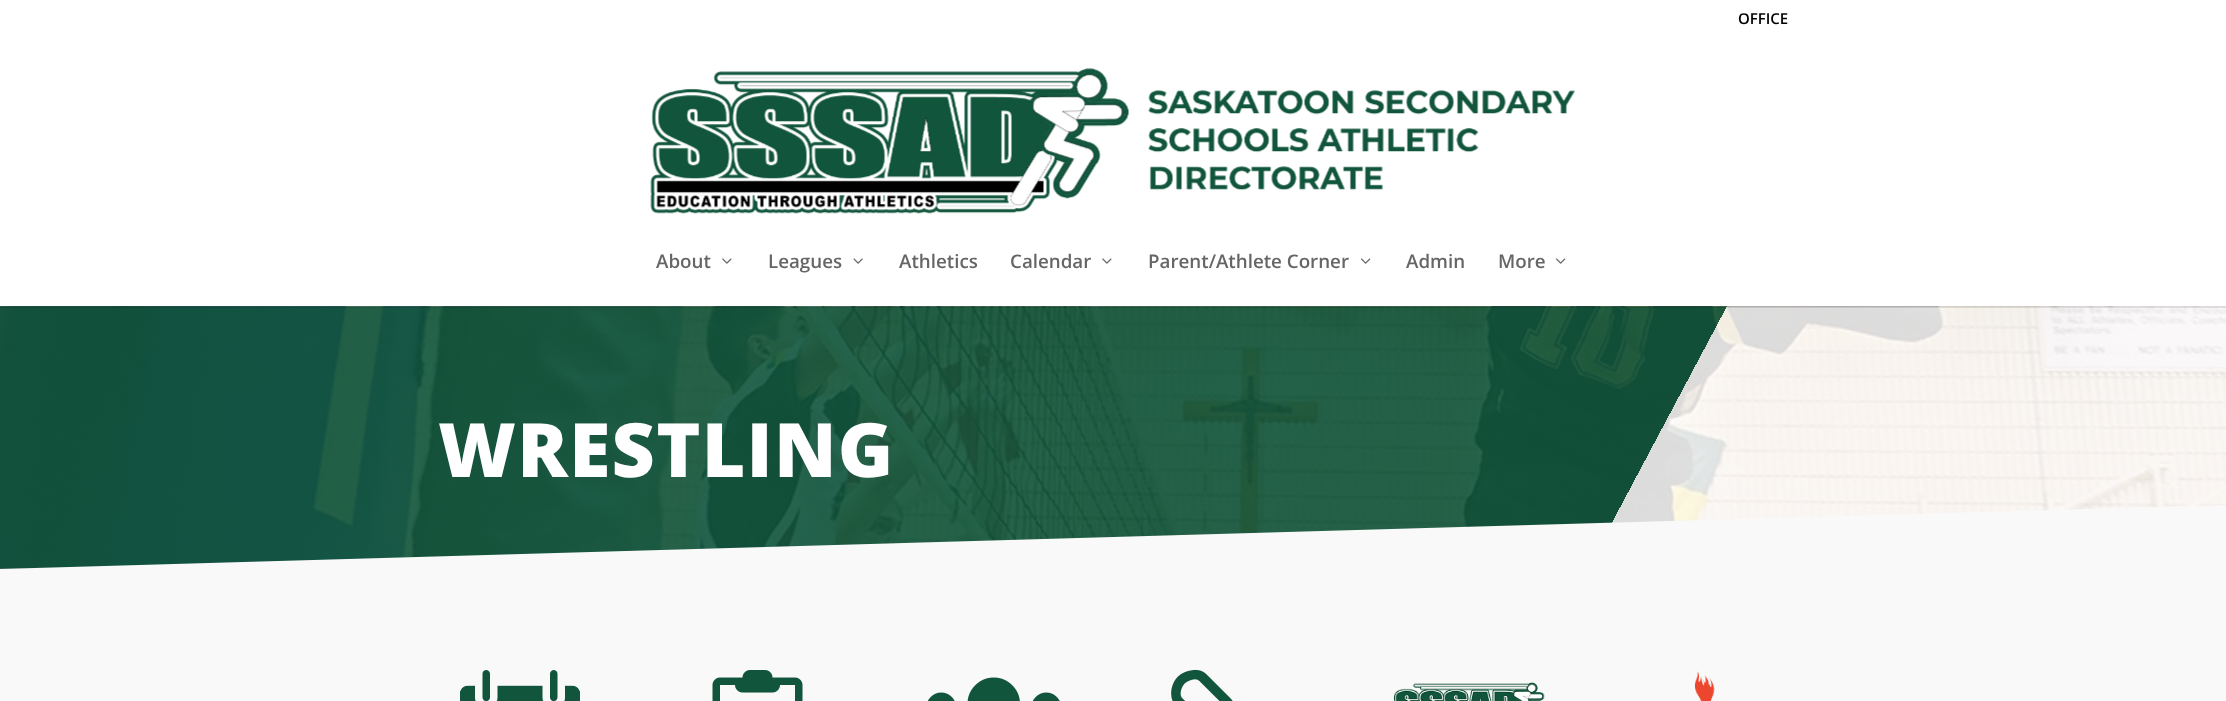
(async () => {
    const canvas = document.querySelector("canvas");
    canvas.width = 2226;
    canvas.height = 701;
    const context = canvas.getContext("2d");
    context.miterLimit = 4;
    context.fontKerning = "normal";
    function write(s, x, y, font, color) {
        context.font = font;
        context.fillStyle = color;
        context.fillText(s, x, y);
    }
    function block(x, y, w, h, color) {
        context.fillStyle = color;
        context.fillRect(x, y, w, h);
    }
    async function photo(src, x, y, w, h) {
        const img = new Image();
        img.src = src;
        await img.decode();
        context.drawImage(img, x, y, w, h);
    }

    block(0, 0, 2226, 701, "rgb(255, 255, 255)");
    write("OFFICE", 1738, 24, "600 15px Open Sans", "rgb(0, 0, 0)");
    await photo("media/5.png", 0, 306, 2226, 263);
    block(0, 306, 2226, 2, "rgba(0, 0, 0, 0.1)");
    await photo("media/1.png", 650, 68, 925, 146);
    write("About", 656, 268, "600 18.75px Open Sans", "rgb(102, 102, 102)");
    await photo("media/2.png", 722, 258, 10, 6);
    write("Leagues", 768, 268, "600 18.75px Open Sans", "rgb(102, 102, 102)");
    await photo("media/3.png", 853, 258, 10, 6);
    write("Athletics", 899, 268, "600 18.75px Open Sans", "rgb(102, 102, 102)");
    write("Calendar", 1010, 268, "600 18.75px Open Sans", "rgb(102, 102, 102)");
    await photo("media/2.png", 1102, 258, 10, 6);
    write("Parent/Athlete Corner", 1148, 268, "600 18.75px Open Sans", "rgb(102, 102, 102)");
    await photo("media/4.png", 1361, 258, 10, 6);
    write("Admin", 1406, 268, "600 18.75px Open Sans", "rgb(102, 102, 102)");
    write("More", 1498, 268, "600 18.75px Open Sans", "rgb(102, 102, 102)");
    await photo("media/4.png", 1556, 258, 10, 6);
    context.letterSpacing = "1.25px";
    write("WRESTLING", 438, 477, "800 75px Open Sans", "rgb(255, 255, 255)");
    context.fillStyle = "rgb(249, 249, 249)";
    context.beginPath();
    context.moveTo(2226, 505);
    context.lineTo(2226, 569);
    context.lineTo(0, 569);
    context.closePath();
    context.fill();
    block(0, 569, 2226, 132, "rgb(249, 249, 249)");
    await photo("media/6.png", 460, 670, 120, 31);
    await photo("media/7.png", 712, 670, 91, 31);
    await photo("media/8.png", 927, 677, 133, 24);
    await photo("media/9.png", 1171, 669, 62, 32);
    await photo("media/10.png", 1393, 682, 152, 19);
    await photo("media/11.png", 1694, 671, 21, 30);
})();
